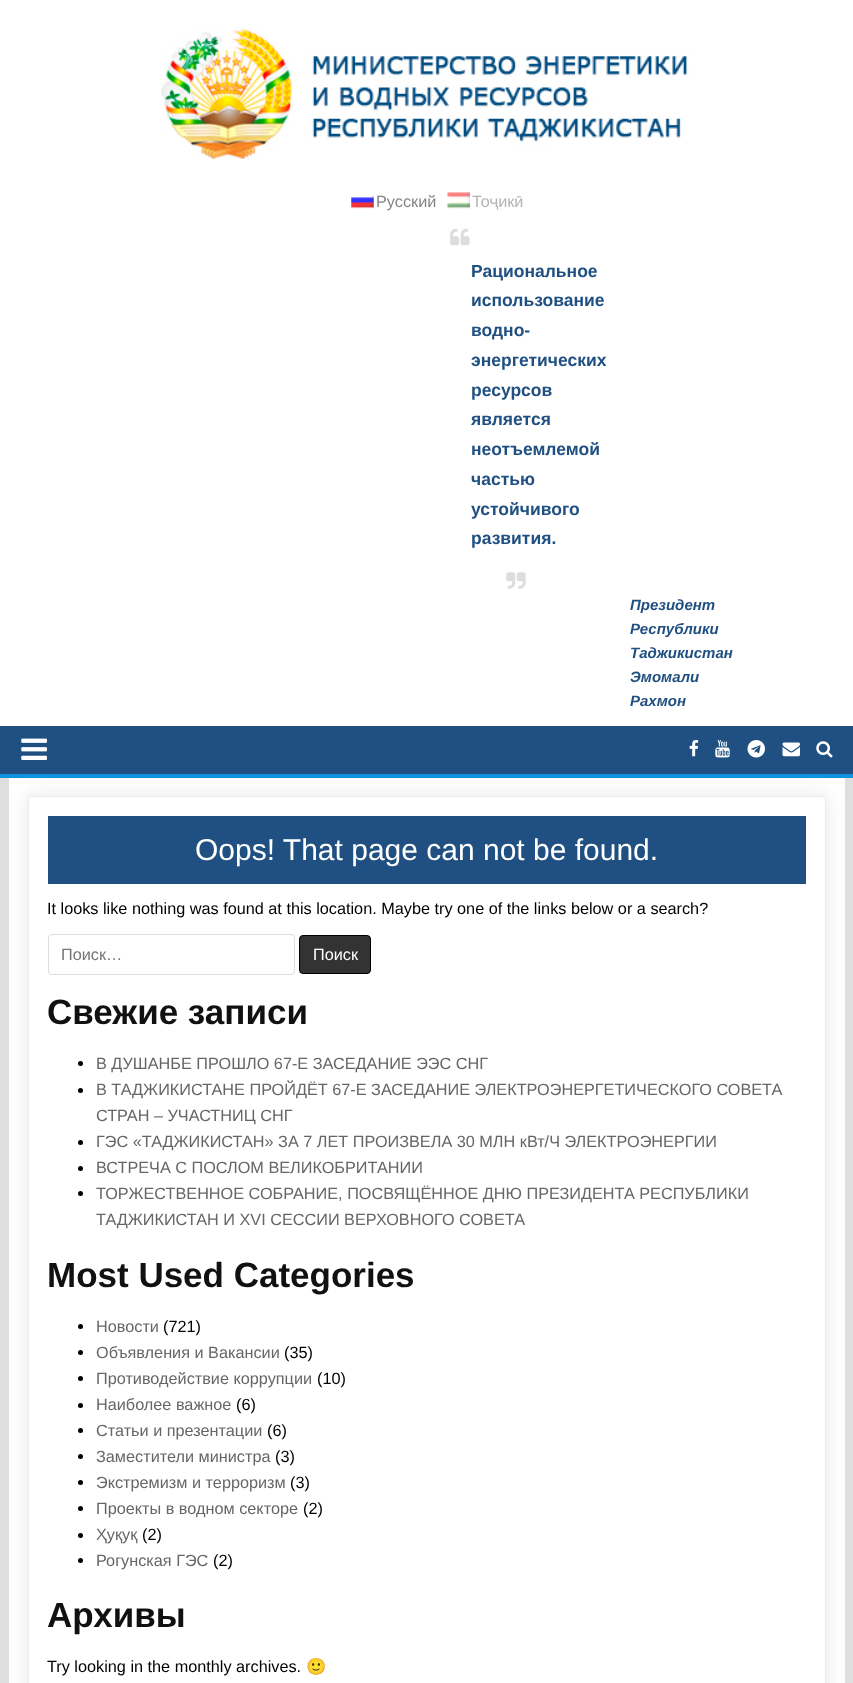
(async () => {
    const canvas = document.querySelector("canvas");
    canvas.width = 853;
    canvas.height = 1683;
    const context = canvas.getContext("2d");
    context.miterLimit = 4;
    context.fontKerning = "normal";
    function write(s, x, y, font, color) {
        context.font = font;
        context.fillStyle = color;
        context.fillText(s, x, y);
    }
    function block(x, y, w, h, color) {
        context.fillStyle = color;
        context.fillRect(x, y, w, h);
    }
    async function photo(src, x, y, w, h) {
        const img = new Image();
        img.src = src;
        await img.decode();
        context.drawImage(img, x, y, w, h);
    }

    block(0, 0, 853, 1683, "rgb(222, 222, 222)");
    block(0, 0, 853, 726, "rgb(255, 255, 255)");
    await photo("media/1.png", 161, 28, 530, 131);
    await photo("media/2.png", 351, 195, 23, 14);
    write("Русский", 376, 207, "16.25px Liberation Sans", "rgb(133, 133, 133)");
    await photo("media/3.png", 447, 192, 23, 17);
    write("Тоҷикӣ", 472, 207, "16.25px Liberation Sans", "rgb(179, 179, 179)");
    await photo("media/4.png", 450, 228, 20, 18);
    write("Рациональное", 471, 277, "bold 17.5px Liberation Sans", "rgb(32, 80, 129)");
    write("использование", 471, 306, "bold 17.5px Liberation Sans", "rgb(32, 80, 129)");
    write("водно-", 471, 336, "bold 17.5px Liberation Sans", "rgb(32, 80, 129)");
    write("энергетических", 471, 366, "bold 17.5px Liberation Sans", "rgb(32, 80, 129)");
    write("ресурсов", 471, 396, "bold 17.5px Liberation Sans", "rgb(32, 80, 129)");
    write("является", 471, 425, "bold 17.5px Liberation Sans", "rgb(32, 80, 129)");
    write("неотъемлемой", 471, 455, "bold 17.5px Liberation Sans", "rgb(32, 80, 129)");
    write("частью", 471, 485, "bold 17.5px Liberation Sans", "rgb(32, 80, 129)");
    write("устойчивого", 471, 515, "bold 17.5px Liberation Sans", "rgb(32, 80, 129)");
    write("развития.", 471, 544, "bold 17.5px Liberation Sans", "rgb(32, 80, 129)");
    await photo("media/5.png", 506, 572, 20, 17);
    write("Президент", 630, 610, "italic bold 15px Liberation Sans", "rgb(32, 80, 129)");
    write("Республики", 630, 634, "italic bold 15px Liberation Sans", "rgb(32, 80, 129)");
    write("Таджикистан", 630, 658, "italic bold 15px Liberation Sans", "rgb(32, 80, 129)");
    write("Эмомали", 630, 682, "italic bold 15px Liberation Sans", "rgb(32, 80, 129)");
    write("Рахмон", 630, 706, "italic bold 15px Liberation Sans", "rgb(32, 80, 129)");
    block(0, 726, 853, 48, "rgb(32, 80, 129)");
    block(0, 774, 853, 4, "rgb(12, 146, 223)");
    await photo("media/6.png", 21, 738, 26, 22);
    await photo("media/7.png", 689, 740, 10, 17);
    await photo("media/8.png", 715, 740, 15, 18);
    await photo("media/9.png", 747, 740, 18, 18);
    await photo("media/10.png", 782, 742, 18, 15);
    await photo("media/11.png", 816, 741, 17, 17);
    block(9, 778, 836, 905, "rgb(255, 255, 255)");
    context.fillStyle = "rgba(0, 0, 0, 0.1)";
    context.filter = "blur(9.5px)";
    context.beginPath();
    context.rect(28, 796, 798, 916);
    context.fill();
    context.filter = "none";
    context.fillStyle = "rgb(255, 255, 255)";
    context.beginPath();
    context.rect(28.5, 796.5, 797, 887);
    context.fill();
    context.strokeStyle = "rgb(236, 236, 236)";
    context.stroke();
    block(48, 816, 758, 68, "rgb(32, 80, 129)");
    write("Oops! That page can not be found.", 195, 860, "30px Liberation Sans", "rgb(255, 255, 255)");
    write("It looks like nothing was found at this location. Maybe try one of the links below or a search?", 47, 914, "16.25px Liberation Sans", "rgb(0, 0, 0)");
    context.beginPath();
    context.roundRect(48.5, 934.5, 246, 40, 3.5);
    context.strokeStyle = "rgb(221, 221, 221)";
    context.stroke();
    write("Поиск…", 61, 960, "16.25px Liberation Sans", "rgb(117, 117, 117)");
    context.fillStyle = "rgb(51, 51, 51)";
    context.beginPath();
    context.roundRect(299.5, 935.5, 71, 38, 3.5);
    context.fill();
    context.strokeStyle = "rgb(0, 0, 0)";
    context.stroke();
    write("Поиск", 313, 960, "16.25px Liberation Sans", "rgb(255, 255, 255)");
    write("Свежие записи", 47, 1024, "bold 35px Liberation Sans", "rgb(17, 17, 17)");
    context.fillStyle = "rgb(0, 0, 0)";
    context.beginPath();
    context.arc(80.5, 1063.5, 2.5, 0, Math.PI * 2);
    context.fill();
    write("В ДУШАНБЕ ПРОШЛО 67-Е ЗАСЕДАНИЕ ЭЭС СНГ", 96, 1069, "16.25px Liberation Sans", "rgb(102, 102, 102)");
    context.fillStyle = "rgb(0, 0, 0)";
    context.beginPath();
    context.arc(80.5, 1090.5, 2.5, 0, Math.PI * 2);
    context.fill();
    write("В ТАДЖИКИСТАНЕ ПРОЙДЁТ 67-Е ЗАСЕДАНИЕ ЭЛЕКТРОЭНЕРГЕТИЧЕСКОГО СОВЕТА", 96, 1095, "16.25px Liberation Sans", "rgb(102, 102, 102)");
    write("СТРАН – УЧАСТНИЦ СНГ", 96, 1121, "16.25px Liberation Sans", "rgb(102, 102, 102)");
    context.fillStyle = "rgb(0, 0, 0)";
    context.beginPath();
    context.arc(80.5, 1142.5, 2.5, 0, Math.PI * 2);
    context.fill();
    write("ГЭС «ТАДЖИКИСТАН» ЗА 7 ЛЕТ ПРОИЗВЕЛА 30 МЛН кВт/Ч ЭЛЕКТРОЭНЕРГИИ", 96, 1147, "16.25px Liberation Sans", "rgb(102, 102, 102)");
    context.fillStyle = "rgb(0, 0, 0)";
    context.beginPath();
    context.arc(80.5, 1168.5, 2.5, 0, Math.PI * 2);
    context.fill();
    write("ВСТРЕЧА С ПОСЛОМ ВЕЛИКОБРИТАНИИ", 96, 1173, "16.25px Liberation Sans", "rgb(102, 102, 102)");
    context.fillStyle = "rgb(0, 0, 0)";
    context.beginPath();
    context.arc(80.5, 1193.5, 2.5, 0, Math.PI * 2);
    context.fill();
    write("ТОРЖЕСТВЕННОЕ СОБРАНИЕ, ПОСВЯЩЁННОЕ ДНЮ ПРЕЗИДЕНТА РЕСПУБЛИКИ", 96, 1199, "16.25px Liberation Sans", "rgb(102, 102, 102)");
    write("ТАДЖИКИСТАН И XVI СЕССИИ ВЕРХОВНОГО СОВЕТА", 96, 1225, "16.25px Liberation Sans", "rgb(102, 102, 102)");
    write("Most Used Categories", 47, 1287, "bold 35px Liberation Sans", "rgb(17, 17, 17)");
    context.fillStyle = "rgb(0, 0, 0)";
    context.beginPath();
    context.arc(80.5, 1326.5, 2.5, 0, Math.PI * 2);
    context.fill();
    write("Новости", 96, 1332, "16.25px Liberation Sans", "rgb(102, 102, 102)");
    write("(721)", 163, 1332, "16.25px Liberation Sans", "rgb(0, 0, 0)");
    context.beginPath();
    context.arc(80.5, 1352.5, 2.5, 0, Math.PI * 2);
    context.fill();
    write("Объявления и Вакансии", 96, 1358, "16.25px Liberation Sans", "rgb(102, 102, 102)");
    write("(35)", 284, 1358, "16.25px Liberation Sans", "rgb(0, 0, 0)");
    context.beginPath();
    context.arc(80.5, 1378.5, 2.5, 0, Math.PI * 2);
    context.fill();
    write("Противодействие коррупции", 96, 1384, "16.25px Liberation Sans", "rgb(102, 102, 102)");
    write("(10)", 317, 1384, "16.25px Liberation Sans", "rgb(0, 0, 0)");
    context.beginPath();
    context.arc(80.5, 1405.5, 2.5, 0, Math.PI * 2);
    context.fill();
    write("Наиболее важное", 96, 1410, "16.25px Liberation Sans", "rgb(102, 102, 102)");
    write("(6)", 236, 1410, "16.25px Liberation Sans", "rgb(0, 0, 0)");
    context.beginPath();
    context.arc(80.5, 1430.5, 2.5, 0, Math.PI * 2);
    context.fill();
    write("Статьи и презентации", 96, 1436, "16.25px Liberation Sans", "rgb(102, 102, 102)");
    write("(6)", 267, 1436, "16.25px Liberation Sans", "rgb(0, 0, 0)");
    context.beginPath();
    context.arc(80.5, 1456.5, 2.5, 0, Math.PI * 2);
    context.fill();
    write("Заместители министра", 96, 1462, "16.25px Liberation Sans", "rgb(102, 102, 102)");
    write("(3)", 275, 1462, "16.25px Liberation Sans", "rgb(0, 0, 0)");
    context.beginPath();
    context.arc(80.5, 1482.5, 2.5, 0, Math.PI * 2);
    context.fill();
    write("Экстремизм и терроризм", 96, 1488, "16.25px Liberation Sans", "rgb(102, 102, 102)");
    write("(3)", 290, 1488, "16.25px Liberation Sans", "rgb(0, 0, 0)");
    context.beginPath();
    context.arc(80.5, 1508.5, 2.5, 0, Math.PI * 2);
    context.fill();
    write("Проекты в водном секторе", 96, 1514, "16.25px Liberation Sans", "rgb(102, 102, 102)");
    write("(2)", 303, 1514, "16.25px Liberation Sans", "rgb(0, 0, 0)");
    context.beginPath();
    context.arc(80.5, 1535.5, 2.5, 0, Math.PI * 2);
    context.fill();
    write("Ҳуқуқ", 96, 1540, "16.25px Liberation Sans", "rgb(102, 102, 102)");
    write("(2)", 142, 1540, "16.25px Liberation Sans", "rgb(0, 0, 0)");
    context.beginPath();
    context.arc(80.5, 1560.5, 2.5, 0, Math.PI * 2);
    context.fill();
    write("Рогунская ГЭС", 96, 1566, "16.25px Liberation Sans", "rgb(102, 102, 102)");
    write("(2)", 213, 1566, "16.25px Liberation Sans", "rgb(0, 0, 0)");
    write("Архивы", 47, 1627, "bold 35px Liberation Sans", "rgb(17, 17, 17)");
    write("Try looking in the monthly archives.", 47, 1672, "16.25px Liberation Sans", "rgb(0, 0, 0)");
    write("🙂", 306, 1672, "16.25px Noto Color Emoji", "rgb(0, 0, 0)");
})();
